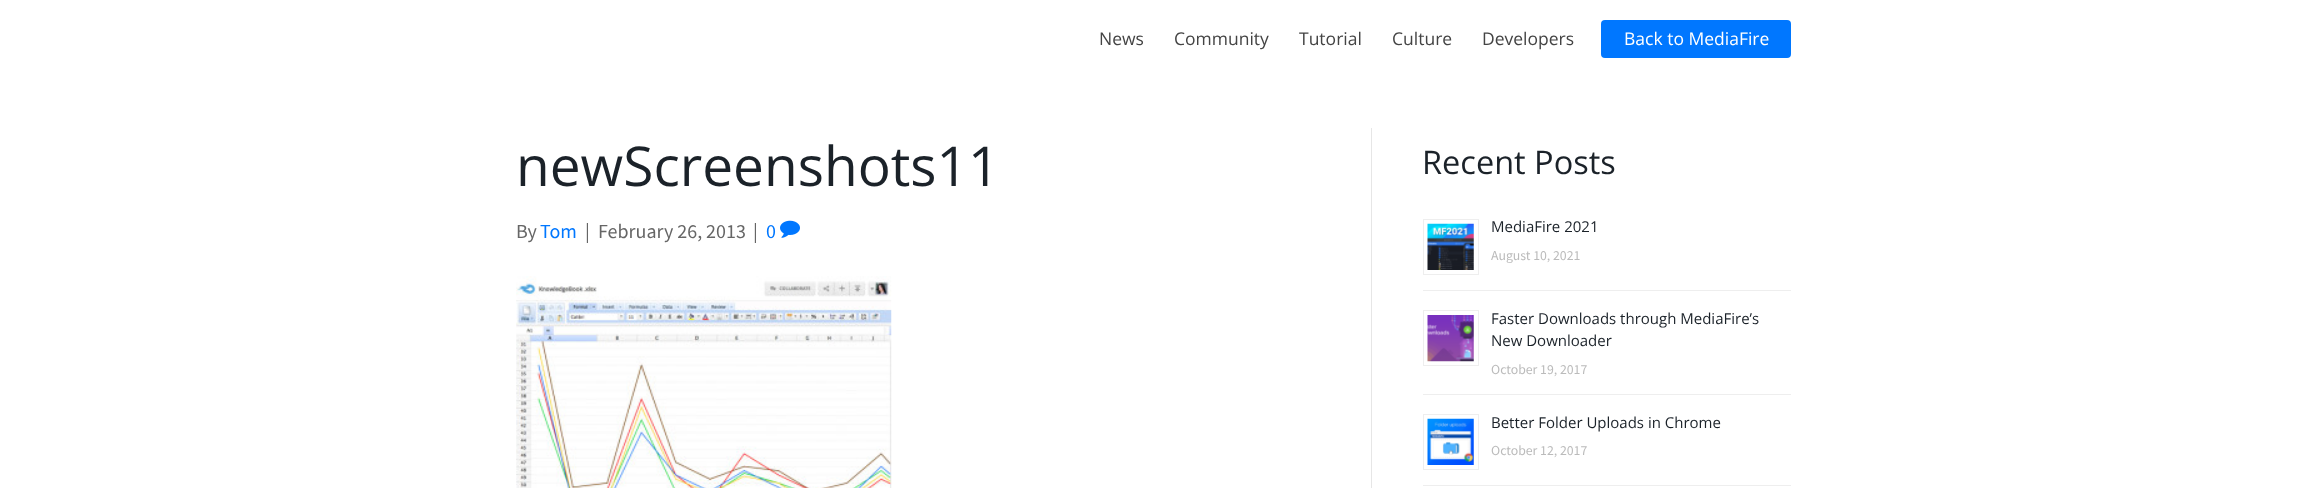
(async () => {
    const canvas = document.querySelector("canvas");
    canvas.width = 2306;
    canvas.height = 488;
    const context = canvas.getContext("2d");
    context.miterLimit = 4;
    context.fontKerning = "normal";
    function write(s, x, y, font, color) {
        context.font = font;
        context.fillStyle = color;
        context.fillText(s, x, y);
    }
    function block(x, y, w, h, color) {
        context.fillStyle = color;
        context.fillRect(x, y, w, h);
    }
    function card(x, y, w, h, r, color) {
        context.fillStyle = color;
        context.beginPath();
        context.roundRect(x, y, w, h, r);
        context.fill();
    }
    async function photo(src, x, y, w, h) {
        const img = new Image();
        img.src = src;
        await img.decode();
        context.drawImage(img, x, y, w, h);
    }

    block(0, 0, 2306, 488, "rgb(255, 255, 255)");
    write("News", 1099, 45, "17.5px Open Sans", "rgb(68, 68, 68)");
    write("Community", 1174, 45, "17.5px Open Sans", "rgb(68, 68, 68)");
    write("Tutorial", 1299, 45, "17.5px Open Sans", "rgb(68, 68, 68)");
    write("Culture", 1392, 45, "17.5px Open Sans", "rgb(68, 68, 68)");
    write("Developers", 1482, 45, "17.5px Open Sans", "rgb(68, 68, 68)");
    card(1601, 20, 190, 38, 4, "rgb(0, 119, 255)");
    write("Back to MediaFire", 1624, 45, "17.5px Open Sans", "rgb(255, 255, 255)");
    block(1371, 128, 1, 360, "rgb(230, 230, 230)");
    write("newScreenshots11", 516, 186, "55px Open Sans", "rgb(27, 34, 41)");
    write("By", 516, 238, "20px Source Sans Pro", "rgb(102, 102, 102)");
    write("Tom", 540, 238, "20px Source Sans Pro", "rgb(0, 119, 255)");
    write("|", 585, 238, "20px Source Sans Pro", "rgb(102, 102, 102)");
    write("February 26, 2013", 598, 238, "20px Source Sans Pro", "rgb(102, 102, 102)");
    write("|", 753, 238, "20px Source Sans Pro", "rgb(102, 102, 102)");
    write("0", 766, 238, "20px Source Sans Pro", "rgb(0, 119, 255)");
    await photo("media/1.png", 780, 220, 20, 18);
    await photo("media/2.png", 516, 276, 376, 212);
    write("Recent Posts", 1422, 174, "32.5px Open Sans", "rgb(27, 34, 41)");
    block(1423, 290, 368, 1, "rgb(238, 238, 238)");
    context.strokeStyle = "rgb(238, 238, 238)";
    context.strokeRect(1423.5, 219.5, 55, 55);
    await photo("media/3.png", 1427, 223, 47, 47);
    write("MediaFire 2021", 1491, 232, "15px Open Sans", "rgb(27, 34, 41)");
    write("August 10, 2021", 1491, 260, "13.75px Source Sans Pro", "rgb(187, 187, 187)");
    block(1423, 394, 368, 1, "rgb(238, 238, 238)");
    context.strokeRect(1423.5, 310.5, 55, 55);
    await photo("media/4.png", 1427, 315, 47, 47);
    write("Faster Downloads through MediaFire’s", 1491, 324, "15px Open Sans", "rgb(27, 34, 41)");
    write("New Downloader", 1491, 346, "15px Open Sans", "rgb(27, 34, 41)");
    write("October 19, 2017", 1491, 374, "13.75px Source Sans Pro", "rgb(187, 187, 187)");
    block(1423, 485, 368, 1, "rgb(238, 238, 238)");
    context.strokeRect(1423.5, 414.5, 55, 55);
    await photo("media/5.png", 1427, 418, 47, 47);
    write("Better Folder Uploads in Chrome", 1491, 428, "15px Open Sans", "rgb(27, 34, 41)");
    write("October 12, 2017", 1491, 455, "13.75px Source Sans Pro", "rgb(187, 187, 187)");
})();
